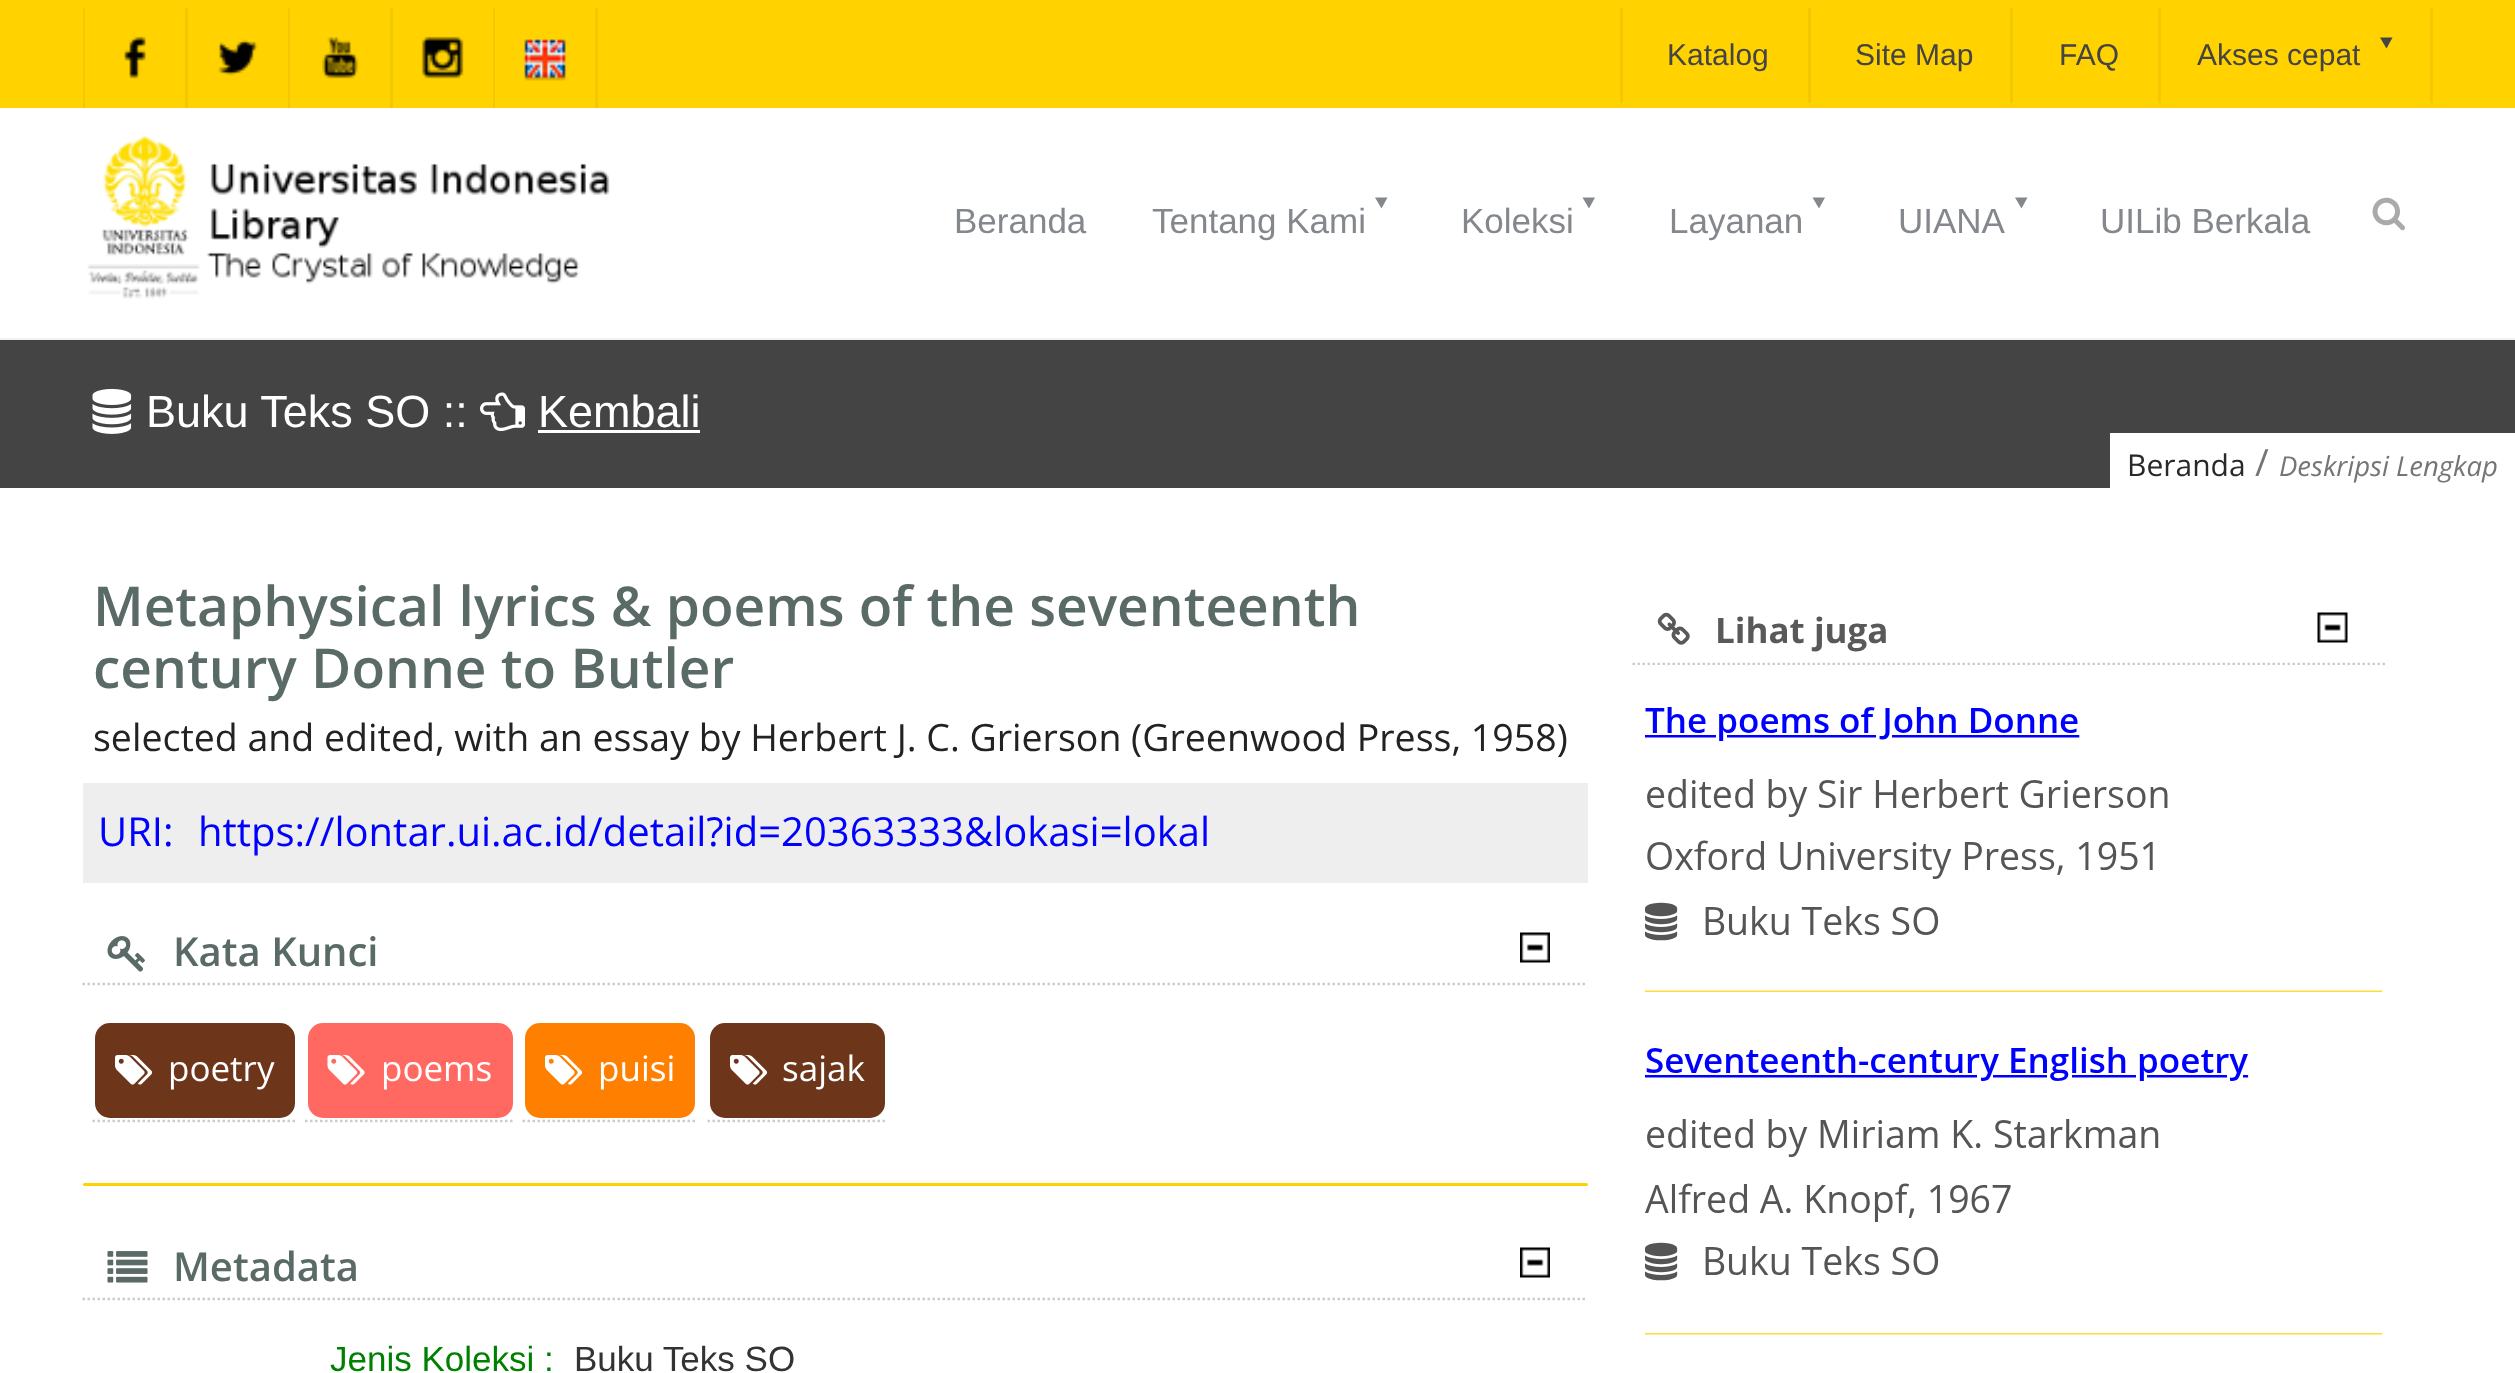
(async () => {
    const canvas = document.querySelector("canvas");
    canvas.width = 2515;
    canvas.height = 1373;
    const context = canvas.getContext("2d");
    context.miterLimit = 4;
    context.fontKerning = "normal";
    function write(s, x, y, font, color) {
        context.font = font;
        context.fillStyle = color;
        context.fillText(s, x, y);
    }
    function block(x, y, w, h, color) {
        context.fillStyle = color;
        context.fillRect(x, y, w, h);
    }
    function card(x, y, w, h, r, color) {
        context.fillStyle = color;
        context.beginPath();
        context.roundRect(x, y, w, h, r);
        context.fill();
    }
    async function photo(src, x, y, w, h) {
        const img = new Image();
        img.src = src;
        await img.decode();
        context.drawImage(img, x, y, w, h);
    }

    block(0, 0, 2515, 1373, "rgb(255, 255, 255)");
    block(0, 338, 2515, 2, "rgb(242, 242, 242)");
    block(0, 0, 2515, 108, "rgb(255, 210, 0)");
    block(83, 8, 2, 100, "rgb(242, 200, 0)");
    block(185, 8, 3, 100, "rgb(242, 200, 0)");
    await photo("media/1.png", 124, 36, 22, 43);
    block(288, 8, 2, 100, "rgb(242, 200, 0)");
    await photo("media/2.png", 217, 39, 41, 37);
    block(390, 8, 3, 100, "rgb(242, 200, 0)");
    await photo("media/3.png", 322, 37, 37, 42);
    block(493, 8, 2, 100, "rgb(242, 200, 0)");
    await photo("media/4.png", 421, 36, 43, 43);
    block(595, 8, 3, 100, "rgb(242, 200, 0)");
    await photo("media/5.png", 524, 39, 42, 42);
    block(1620, 8, 3, 95, "rgb(242, 200, 0)");
    write("Katalog", 1667, 65, "30px Liberation Sans", "rgb(68, 68, 68)");
    block(1808, 8, 3, 95, "rgb(242, 200, 0)");
    write("Site Map", 1855, 65, "30px Liberation Sans", "rgb(68, 68, 68)");
    block(2010, 8, 3, 95, "rgb(242, 200, 0)");
    write("FAQ", 2059, 65, "30px Liberation Sans", "rgb(68, 68, 68)");
    block(2430, 8, 3, 95, "rgb(242, 200, 0)");
    block(2158, 8, 3, 95, "rgb(242, 200, 0)");
    write("Akses cepat", 2197, 65, "30px Liberation Sans", "rgb(68, 68, 68)");
    context.beginPath();
    context.moveTo(2392.5, 37.5);
    context.lineTo(2386.5, 48.5);
    context.lineTo(2380, 37.5);
    context.closePath();
    context.fill();
    await photo("media/6.png", 87, 135, 523, 164);
    write("Beranda", 954, 233, "35px Liberation Sans", "rgb(132, 136, 141)");
    context.beginPath();
    context.moveTo(1387.5, 197.5);
    context.lineTo(1381.5, 208.5);
    context.lineTo(1375, 197.5);
    context.closePath();
    context.fill();
    write("Tentang Kami", 1152, 233, "35px Liberation Sans", "rgb(132, 136, 141)");
    context.beginPath();
    context.moveTo(1595, 197.5);
    context.lineTo(1589, 208.5);
    context.lineTo(1582.5, 197.5);
    context.closePath();
    context.fill();
    write("Koleksi", 1461, 233, "35px Liberation Sans", "rgb(132, 136, 141)");
    context.beginPath();
    context.moveTo(1825, 197.5);
    context.lineTo(1819, 208.5);
    context.lineTo(1812.5, 197.5);
    context.closePath();
    context.fill();
    write("Layanan", 1669, 233, "35px Liberation Sans", "rgb(132, 136, 141)");
    context.beginPath();
    context.moveTo(2027.5, 197.5);
    context.lineTo(2021.5, 208.5);
    context.lineTo(2015, 197.5);
    context.closePath();
    context.fill();
    write("UIANA", 1898, 233, "35px Liberation Sans", "rgb(132, 136, 141)");
    write("UILib Berkala", 2100, 233, "35px Liberation Sans", "rgb(132, 136, 141)");
    await photo("media/7.png", 2372, 197, 33, 34);
    block(0, 341, 2515, 147, "rgb(68, 68, 68)");
    block(0, 340, 2515, 1, "rgb(65, 65, 65)");
    await photo("media/8.png", 92, 388, 40, 46);
    write("Buku Teks SO ::", 146, 427, "45px Liberation Sans", "rgb(255, 255, 255)");
    await photo("media/9.png", 480, 392, 45, 40);
    write("Kembali", 538, 427, "45px Liberation Sans", "rgb(255, 255, 255)");
    block(538, 430, 162, 3, "rgb(255, 255, 255)");
    block(2110, 433, 405, 55, "rgb(255, 255, 255)");
    write("Beranda", 2127, 476, "30px Open Sans", "rgb(41, 41, 40)");
    write("/", 2255, 476, "37.5px Open Sans", "rgb(117, 117, 117)");
    write("Deskripsi Lengkap", 2279, 476, "italic 27.5px Open Sans", "rgb(117, 117, 117)");
    write("Metaphysical lyrics & poems of the seventeenth", 93, 626, "600 55px Open Sans", "rgb(89, 106, 103)");
    write("century Donne to Butler", 93, 688, "600 55px Open Sans", "rgb(89, 106, 103)");
    write("selected and edited, with an essay by Herbert J. C. Grierson (Greenwood Press, 1958)", 93, 751, "37.5px Open Sans", "rgb(34, 34, 34)");
    block(83, 783, 1505, 100, "rgb(238, 238, 238)");
    write("URI:", 98, 846, "40px Open Sans", "rgb(0, 0, 255)");
    write("https://lontar.ui.ac.id/detail?id=20363333&lokasi=lokal", 198, 846, "40px Open Sans", "rgb(0, 0, 255)");
    context.beginPath();
    context.moveTo(82.5, 984);
    context.lineTo(1587.5, 984);
    context.strokeStyle = "rgb(204, 204, 204)";
    context.lineWidth = 2.5;
    context.setLineDash([2.5, 2.5]);
    context.stroke();
    await photo("media/10.png", 107, 936, 38, 36);
    write("Kata Kunci", 173, 966, "600 40px Open Sans", "rgb(89, 106, 103)");
    await photo("media/11.png", 1520, 932, 30, 31);
    context.beginPath();
    context.moveTo(92.5, 1121);
    context.lineTo(297.5, 1121);
    context.stroke();
    card(95, 1023, 200, 95, 15, "rgb(109, 53, 26)");
    await photo("media/12.png", 115, 1055, 38, 30);
    write("poetry", 168, 1081, "35px Open Sans", "rgb(255, 255, 255)");
    context.beginPath();
    context.moveTo(305, 1121);
    context.lineTo(515, 1121);
    context.stroke();
    card(308, 1023, 205, 95, 15, "rgb(255, 105, 97)");
    await photo("media/13.png", 327, 1055, 38, 30);
    write("poems", 381, 1081, "35px Open Sans", "rgb(255, 255, 255)");
    context.beginPath();
    context.moveTo(522.5, 1121);
    context.lineTo(697.5, 1121);
    context.stroke();
    card(525, 1023, 170, 95, 15, "rgb(255, 127, 0)");
    await photo("media/14.png", 545, 1055, 38, 30);
    write("puisi", 598, 1081, "35px Open Sans", "rgb(255, 255, 255)");
    context.beginPath();
    context.moveTo(707.5, 1121);
    context.lineTo(887.5, 1121);
    context.stroke();
    card(710, 1023, 175, 95, 15, "rgb(109, 53, 26)");
    await photo("media/12.png", 730, 1055, 38, 30);
    write("sajak", 782, 1081, "35px Open Sans", "rgb(255, 255, 255)");
    card(83, 1183, 1505, 3, 1.5, "rgb(255, 210, 0)");
    context.beginPath();
    context.moveTo(82.5, 1299);
    context.lineTo(1587.5, 1299);
    context.stroke();
    await photo("media/15.png", 107, 1251, 41, 32);
    write("Metadata", 173, 1281, "600 40px Open Sans", "rgb(89, 106, 103)");
    await photo("media/11.png", 1520, 1247, 30, 31);
    write("Jenis Koleksi :", 330, 1371, "35px Liberation Sans", "rgb(0, 128, 0)");
    write("Buku Teks SO", 574, 1371, "35px Liberation Sans", "rgb(51, 51, 51)");
    context.beginPath();
    context.moveTo(1632.5, 664);
    context.lineTo(2385, 664);
    context.stroke();
    await photo("media/16.png", 1657, 612, 33, 33);
    write("Lihat juga", 1715, 643, "bold 35px Open Sans", "rgb(89, 89, 89)");
    await photo("media/17.png", 2317, 612, 31, 31);
    await photo("media/18.png", 1633, 665, 750, 670);
})();
